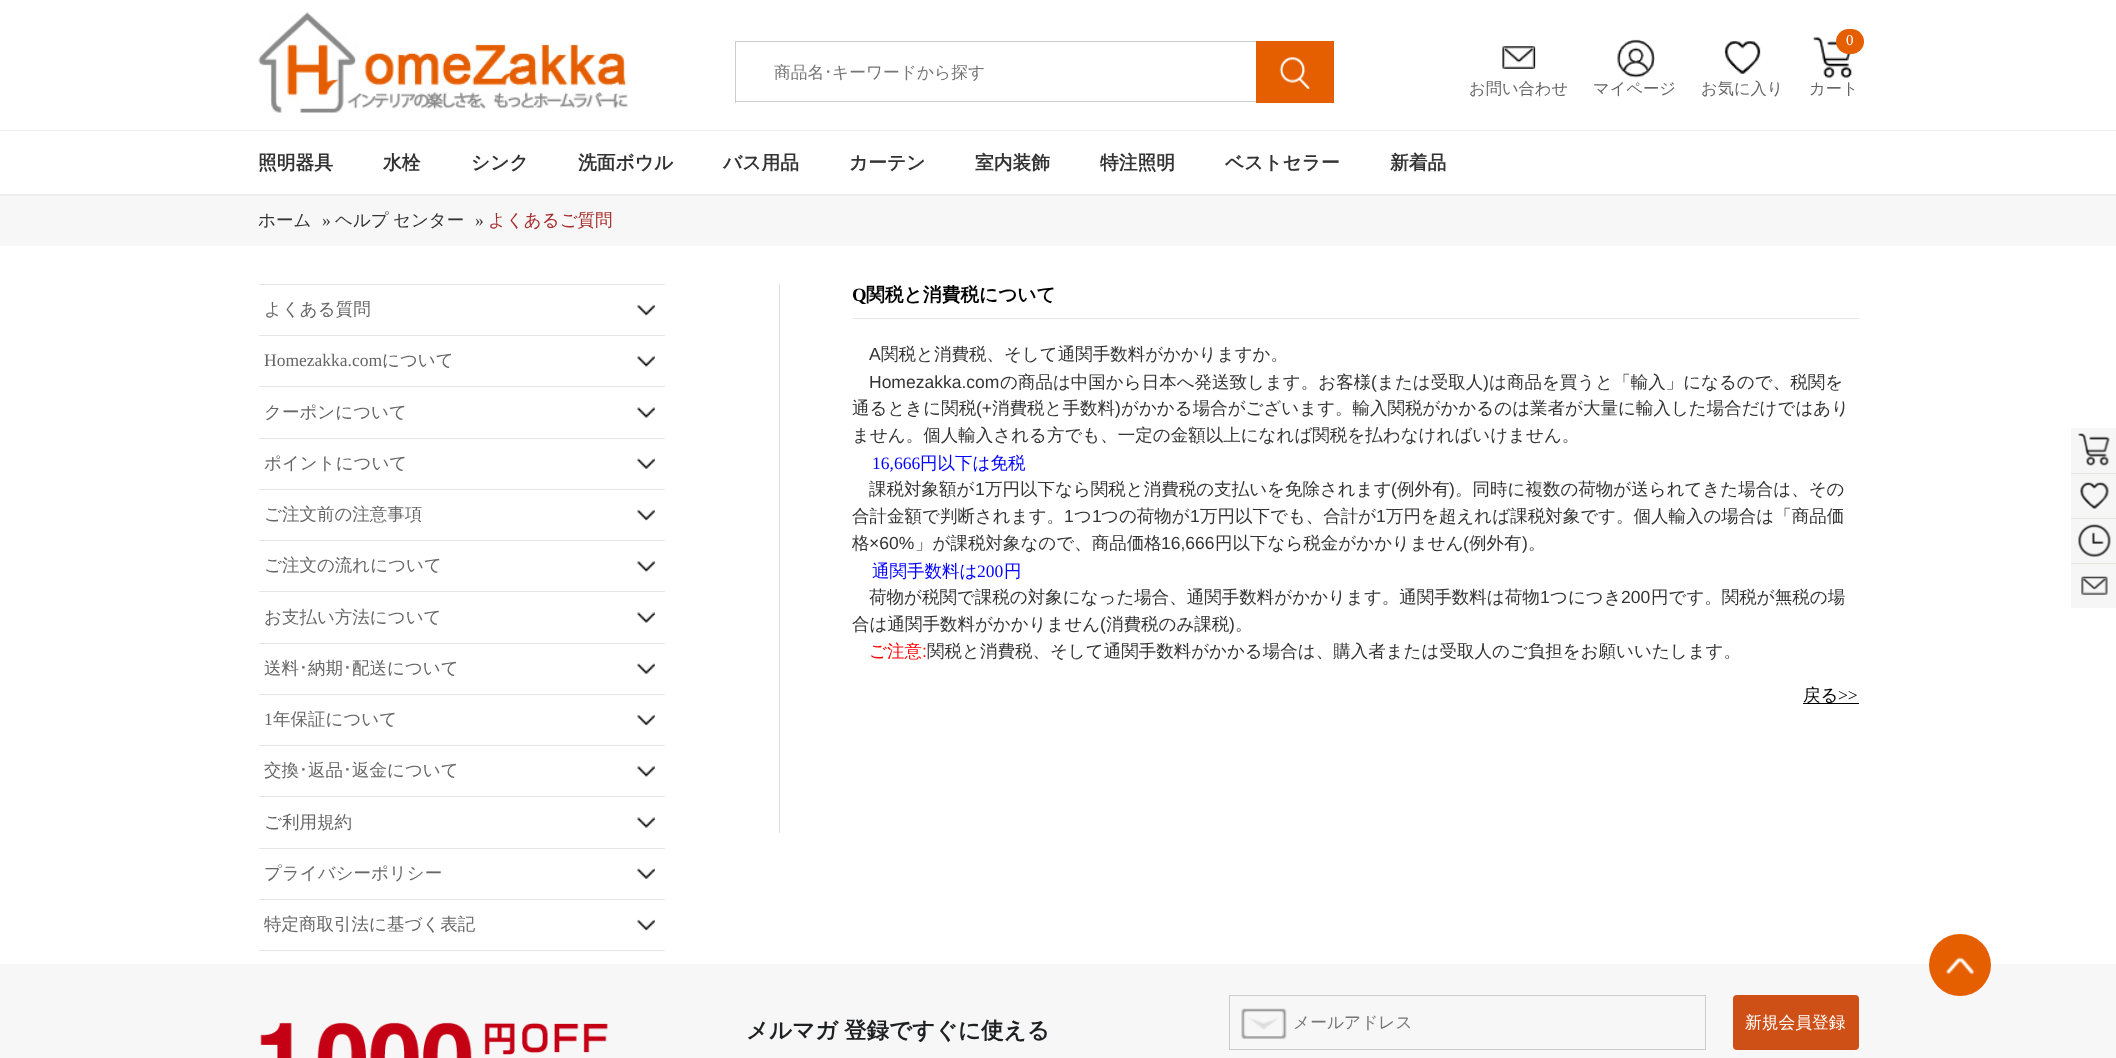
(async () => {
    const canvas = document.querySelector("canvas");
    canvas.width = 2116;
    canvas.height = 1058;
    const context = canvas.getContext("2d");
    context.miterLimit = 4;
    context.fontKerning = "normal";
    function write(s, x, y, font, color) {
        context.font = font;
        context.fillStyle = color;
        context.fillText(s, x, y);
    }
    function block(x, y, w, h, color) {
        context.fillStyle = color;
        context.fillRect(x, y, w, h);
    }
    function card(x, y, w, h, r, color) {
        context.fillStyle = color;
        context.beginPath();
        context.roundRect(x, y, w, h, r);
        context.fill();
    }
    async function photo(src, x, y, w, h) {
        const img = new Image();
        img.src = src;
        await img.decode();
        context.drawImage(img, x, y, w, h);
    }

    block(0, 0, 2116, 1058, "rgb(255, 255, 255)");
    await photo("media/1.png", 258, 12, 370, 101);
    block(735, 41, 521, 1, "rgb(204, 204, 204)");
    block(735, 101, 521, 1, "rgb(204, 204, 204)");
    block(735, 41, 1, 62, "rgb(204, 204, 204)");
    write("商品名", 774, 78, "500 16.75px WenQuanYi Zen Hei", "rgb(117, 117, 117)");
    write("･", 824, 78, "16.75px IPAPGothic", "rgb(117, 117, 117)");
    write("キーワードから探す", 832, 78, "500 16.75px WenQuanYi Zen Hei", "rgb(117, 117, 117)");
    block(1256, 41, 78, 62, "rgb(229, 95, 0)");
    await photo("media/2.png", 1279, 57, 31, 32);
    await photo("media/3.png", 1502, 46, 34, 23);
    write("お問い合わせ", 1469, 94, "500 16.25px WenQuanYi Zen Hei", "rgb(102, 102, 102)");
    await photo("media/4.png", 1617, 39, 38, 39);
    write("マイページ", 1593, 94, "500 16.25px WenQuanYi Zen Hei", "rgb(102, 102, 102)");
    await photo("media/5.png", 1724, 41, 37, 33);
    write("お気に入り", 1701, 94, "500 16.25px WenQuanYi Zen Hei", "rgb(102, 102, 102)");
    await photo("media/6.png", 1813, 37, 39, 41);
    card(1836, 29, 28, 25, 12.5, "rgb(229, 95, 0)");
    write("0", 1846, 45, "15px Liberation Serif", "rgb(255, 255, 255)");
    write("カート", 1809, 94, "500 16.25px WenQuanYi Zen Hei", "rgb(102, 102, 102)");
    block(0, 130, 2116, 1, "rgb(238, 238, 238)");
    block(0, 194, 2116, 2, "rgb(238, 238, 238)");
    write("照明器具", 258, 169, "bold 18.75px WenQuanYi Zen Hei", "rgb(51, 51, 51)");
    write("水栓", 383, 169, "bold 18.75px WenQuanYi Zen Hei", "rgb(51, 51, 51)");
    write("シンク", 471, 169, "bold 18.75px WenQuanYi Zen Hei", "rgb(51, 51, 51)");
    write("洗面ボウル", 578, 169, "bold 18.75px WenQuanYi Zen Hei", "rgb(51, 51, 51)");
    write("バス用品", 723, 169, "bold 18.75px WenQuanYi Zen Hei", "rgb(51, 51, 51)");
    write("カーテン", 849, 169, "bold 18.75px WenQuanYi Zen Hei", "rgb(51, 51, 51)");
    write("室内装飾", 975, 169, "bold 18.75px WenQuanYi Zen Hei", "rgb(51, 51, 51)");
    write("特注照明", 1100, 169, "bold 18.75px WenQuanYi Zen Hei", "rgb(51, 51, 51)");
    write("ベストセラー", 1225, 169, "bold 18.75px WenQuanYi Zen Hei", "rgb(51, 51, 51)");
    write("新着品", 1390, 169, "bold 18.75px WenQuanYi Zen Hei", "rgb(51, 51, 51)");
    block(0, 196, 2116, 50, "rgb(247, 247, 247)");
    write("ホーム", 258, 226, "500 17.5px WenQuanYi Zen Hei", "rgb(51, 51, 51)");
    write("»", 322, 226, "17.5px Liberation Serif", "rgb(51, 51, 51)");
    context.wordSpacing = "-1px";
    write("ヘルプ センター", 335, 226, "500 17.5px WenQuanYi Zen Hei", "rgb(51, 51, 51)");
    context.wordSpacing = "0px";
    write("»", 475, 226, "17.5px Liberation Serif", "rgb(51, 51, 51)");
    write("よくあるご質問", 488, 226, "500 17.5px WenQuanYi Zen Hei", "rgb(167, 45, 44)");
    block(259, 950, 406, 1, "rgb(229, 229, 229)");
    block(259, 284, 406, 1, "rgb(229, 229, 229)");
    write("よくある質問", 264, 315, "500 17.5px WenQuanYi Zen Hei", "rgb(102, 102, 102)");
    await photo("media/7.png", 637, 304, 18, 12);
    block(259, 335, 406, 1, "rgb(229, 229, 229)");
    write("Homezakka.com", 264, 366, "17.5px Liberation Serif", "rgb(102, 102, 102)");
    write("について", 382, 366, "500 17.5px WenQuanYi Zen Hei", "rgb(102, 102, 102)");
    await photo("media/8.png", 637, 356, 18, 11);
    block(259, 386, 406, 1, "rgb(229, 229, 229)");
    write("クーポンについて", 264, 418, "500 17.5px WenQuanYi Zen Hei", "rgb(102, 102, 102)");
    await photo("media/9.png", 637, 407, 18, 11);
    block(259, 438, 406, 1, "rgb(229, 229, 229)");
    write("ポイントについて", 264, 469, "500 17.5px WenQuanYi Zen Hei", "rgb(102, 102, 102)");
    await photo("media/10.png", 637, 458, 18, 11);
    block(259, 489, 406, 1, "rgb(229, 229, 229)");
    write("ご注文前の注意事項", 264, 520, "500 17.5px WenQuanYi Zen Hei", "rgb(102, 102, 102)");
    await photo("media/7.png", 637, 509, 18, 12);
    block(259, 540, 406, 1, "rgb(229, 229, 229)");
    write("ご注文の流れについて", 264, 571, "500 17.5px WenQuanYi Zen Hei", "rgb(102, 102, 102)");
    await photo("media/8.png", 637, 561, 18, 11);
    block(259, 591, 406, 1, "rgb(229, 229, 229)");
    write("お支払い方法について", 264, 623, "500 17.5px WenQuanYi Zen Hei", "rgb(102, 102, 102)");
    await photo("media/9.png", 637, 612, 18, 11);
    block(259, 643, 406, 1, "rgb(229, 229, 229)");
    write("送料", 264, 674, "500 17.5px WenQuanYi Zen Hei", "rgb(102, 102, 102)");
    write("･", 299, 674, "17.5px IPAPGothic", "rgb(102, 102, 102)");
    write("納期", 308, 674, "500 17.5px WenQuanYi Zen Hei", "rgb(102, 102, 102)");
    write("･", 343, 674, "17.5px IPAPGothic", "rgb(102, 102, 102)");
    write("配送について", 352, 674, "500 17.5px WenQuanYi Zen Hei", "rgb(102, 102, 102)");
    await photo("media/10.png", 637, 663, 18, 11);
    block(259, 694, 406, 1, "rgb(229, 229, 229)");
    write("1", 264, 725, "17.5px Liberation Serif", "rgb(102, 102, 102)");
    write("年保証について", 273, 725, "500 17.5px WenQuanYi Zen Hei", "rgb(102, 102, 102)");
    await photo("media/7.png", 637, 714, 18, 12);
    block(259, 745, 406, 1, "rgb(229, 229, 229)");
    write("交換", 264, 776, "500 17.5px WenQuanYi Zen Hei", "rgb(102, 102, 102)");
    write("･", 299, 776, "17.5px IPAPGothic", "rgb(102, 102, 102)");
    write("返品", 308, 776, "500 17.5px WenQuanYi Zen Hei", "rgb(102, 102, 102)");
    write("･", 343, 776, "17.5px IPAPGothic", "rgb(102, 102, 102)");
    write("返金について", 352, 776, "500 17.5px WenQuanYi Zen Hei", "rgb(102, 102, 102)");
    await photo("media/8.png", 637, 766, 18, 11);
    block(259, 796, 406, 1, "rgb(229, 229, 229)");
    write("ご利用規約", 264, 828, "500 17.5px WenQuanYi Zen Hei", "rgb(102, 102, 102)");
    await photo("media/9.png", 637, 817, 18, 11);
    block(259, 848, 406, 1, "rgb(229, 229, 229)");
    write("プライバシーポリシー", 264, 879, "500 17.5px WenQuanYi Zen Hei", "rgb(102, 102, 102)");
    await photo("media/10.png", 637, 868, 18, 11);
    block(259, 899, 406, 1, "rgb(229, 229, 229)");
    write("特定商取引法に基づく表記", 264, 930, "500 17.5px WenQuanYi Zen Hei", "rgb(102, 102, 102)");
    await photo("media/7.png", 637, 919, 18, 12);
    block(779, 284, 1, 549, "rgb(221, 221, 221)");
    block(853, 318, 1006, 1, "rgb(229, 229, 229)");
    write("Q", 852, 301, "bold 18.75px Liberation Serif", "rgb(0, 0, 0)");
    write("関税と消費税について", 866, 301, "bold 18.75px WenQuanYi Zen Hei", "rgb(0, 0, 0)");
    write("A", 869, 360, "17.5px Liberation Sans", "rgb(51, 51, 51)");
    write("関税と消費税、そして通関手数料がかかりますか。", 881, 360, "500 17.5px WenQuanYi Zen Hei", "rgb(51, 51, 51)");
    write("Homezakka.com", 869, 388, "17.5px Liberation Sans", "rgb(51, 51, 51)");
    write("の商品は中国から日本へ発送致します。お客様", 1000, 388, "500 17.5px WenQuanYi Zen Hei", "rgb(51, 51, 51)");
    write("(", 1371, 388, "17.5px Liberation Sans", "rgb(51, 51, 51)");
    write("または受取人", 1377, 388, "500 17.5px WenQuanYi Zen Hei", "rgb(51, 51, 51)");
    write(")", 1483, 388, "17.5px Liberation Sans", "rgb(51, 51, 51)");
    write("は商品を買うと「輸入」になるので、税関を", 1489, 388, "500 17.5px WenQuanYi Zen Hei", "rgb(51, 51, 51)");
    write("通るときに関税", 852, 414, "500 17.5px WenQuanYi Zen Hei", "rgb(51, 51, 51)");
    write("(+", 976, 414, "17.5px Liberation Sans", "rgb(51, 51, 51)");
    write("消費税と手数料", 992, 414, "500 17.5px WenQuanYi Zen Hei", "rgb(51, 51, 51)");
    write(")", 1115, 414, "17.5px Liberation Sans", "rgb(51, 51, 51)");
    write("がかかる場合がございます。輸入関税がかかるのは業者が大量に輸入した場合だけではあり", 1121, 414, "500 17.5px WenQuanYi Zen Hei", "rgb(51, 51, 51)");
    write("ません。個人輸入される方でも、一定の金額以上になれば関税を払わなければいけません。", 852, 441, "500 17.5px WenQuanYi Zen Hei", "rgb(51, 51, 51)");
    write("16,666", 872, 469, "17.5px Liberation Serif", "rgb(0, 0, 255)");
    write("円以下は免税", 920, 469, "500 17.5px WenQuanYi Zen Hei", "rgb(0, 0, 255)");
    write("課税対象額が", 869, 495, "500 17.5px WenQuanYi Zen Hei", "rgb(51, 51, 51)");
    write("1", 975, 495, "17.5px Liberation Sans", "rgb(51, 51, 51)");
    write("万円以下なら関税と消費税の支払いを免除されます", 985, 495, "500 17.5px WenQuanYi Zen Hei", "rgb(51, 51, 51)");
    write("(", 1391, 495, "17.5px Liberation Sans", "rgb(51, 51, 51)");
    write("例外有", 1397, 495, "500 17.5px WenQuanYi Zen Hei", "rgb(51, 51, 51)");
    write(")", 1449, 495, "17.5px Liberation Sans", "rgb(51, 51, 51)");
    write("。同時に複数の荷物が送られてきた場合は、その", 1455, 495, "500 17.5px WenQuanYi Zen Hei", "rgb(51, 51, 51)");
    write("合計金額で判断されます。", 852, 522, "500 17.5px WenQuanYi Zen Hei", "rgb(51, 51, 51)");
    write("1", 1064, 522, "17.5px Liberation Sans", "rgb(51, 51, 51)");
    write("つ", 1074, 522, "500 17.5px WenQuanYi Zen Hei", "rgb(51, 51, 51)");
    write("1", 1092, 522, "17.5px Liberation Sans", "rgb(51, 51, 51)");
    write("つの荷物が", 1101, 522, "500 17.5px WenQuanYi Zen Hei", "rgb(51, 51, 51)");
    write("1", 1190, 522, "17.5px Liberation Sans", "rgb(51, 51, 51)");
    write("万円以下でも、合計が", 1200, 522, "500 17.5px WenQuanYi Zen Hei", "rgb(51, 51, 51)");
    write("1", 1376, 522, "17.5px Liberation Sans", "rgb(51, 51, 51)");
    write("万円を超えれば課税対象です。個人輸入の場合は「商品価", 1386, 522, "500 17.5px WenQuanYi Zen Hei", "rgb(51, 51, 51)");
    write("格", 852, 549, "500 17.5px WenQuanYi Zen Hei", "rgb(51, 51, 51)");
    write("×60%", 869, 549, "17.5px Liberation Sans", "rgb(51, 51, 51)");
    write("」が課税対象なので、商品価格", 915, 549, "500 17.5px WenQuanYi Zen Hei", "rgb(51, 51, 51)");
    write("16,666", 1161, 549, "17.5px Liberation Sans", "rgb(51, 51, 51)");
    write("円以下なら税金がかかりません", 1215, 549, "500 17.5px WenQuanYi Zen Hei", "rgb(51, 51, 51)");
    write("(", 1463, 549, "17.5px Liberation Sans", "rgb(51, 51, 51)");
    write("例外有", 1469, 549, "500 17.5px WenQuanYi Zen Hei", "rgb(51, 51, 51)");
    write(")", 1522, 549, "17.5px Liberation Sans", "rgb(51, 51, 51)");
    write("。", 1528, 549, "500 17.5px WenQuanYi Zen Hei", "rgb(51, 51, 51)");
    write("通関手数料は", 872, 577, "500 17.5px WenQuanYi Zen Hei", "rgb(0, 0, 255)");
    write("200", 977, 577, "17.5px Liberation Serif", "rgb(0, 0, 255)");
    write("円", 1004, 577, "500 17.5px WenQuanYi Zen Hei", "rgb(0, 0, 255)");
    write("荷物が税関で課税の対象になった場合、通関手数料がかかります。通関手数料は荷物", 869, 603, "500 17.5px WenQuanYi Zen Hei", "rgb(51, 51, 51)");
    write("1", 1540, 603, "17.5px Liberation Sans", "rgb(51, 51, 51)");
    write("つにつき", 1550, 603, "500 17.5px WenQuanYi Zen Hei", "rgb(51, 51, 51)");
    write("200", 1621, 603, "17.5px Liberation Sans", "rgb(51, 51, 51)");
    write("円です。関税が無税の場", 1651, 603, "500 17.5px WenQuanYi Zen Hei", "rgb(51, 51, 51)");
    write("合は通関手数料がかかりません", 852, 630, "500 17.5px WenQuanYi Zen Hei", "rgb(51, 51, 51)");
    write("(", 1100, 630, "17.5px Liberation Sans", "rgb(51, 51, 51)");
    write("消費税のみ課税", 1106, 630, "500 17.5px WenQuanYi Zen Hei", "rgb(51, 51, 51)");
    write(")", 1229, 630, "17.5px Liberation Sans", "rgb(51, 51, 51)");
    write("。", 1235, 630, "500 17.5px WenQuanYi Zen Hei", "rgb(51, 51, 51)");
    write("ご注意", 869, 657, "500 17.5px WenQuanYi Zen Hei", "rgb(255, 0, 0)");
    write(":", 922, 657, "17.5px Liberation Sans", "rgb(255, 0, 0)");
    write("関税と消費税、そして通関手数料がかかる場合は、購入者または受取人のご負担をお願いいたします。", 927, 657, "500 17.5px WenQuanYi Zen Hei", "rgb(51, 51, 51)");
    block(1803, 703, 56, 1, "rgb(0, 0, 0)");
    write("戻る", 1803, 701, "500 17.5px WenQuanYi Zen Hei", "rgb(0, 0, 0)");
    write(">>", 1838, 701, "17.5px Liberation Serif", "rgb(0, 0, 0)");
    block(2071, 428, 45, 45, "rgb(246, 246, 246)");
    await photo("media/11.png", 2078, 433, 32, 33);
    block(2071, 474, 45, 44, "rgb(246, 246, 246)");
    block(2071, 473, 45, 1, "rgb(232, 228, 223)");
    await photo("media/12.png", 2080, 482, 29, 27);
    block(2071, 519, 45, 44, "rgb(246, 246, 246)");
    block(2071, 518, 45, 1, "rgb(232, 228, 223)");
    await photo("media/13.png", 2078, 524, 33, 33);
    block(2071, 564, 45, 44, "rgb(246, 246, 246)");
    block(2071, 563, 45, 1, "rgb(232, 228, 223)");
    await photo("media/14.png", 2081, 576, 27, 19);
    block(0, 964, 2116, 94, "rgb(247, 247, 247)");
    context.fillStyle = "rgb(229, 95, 0)";
    context.beginPath();
    context.arc(1960, 965, 31, 0, Math.PI * 2);
    context.fill();
    await photo("media/15.png", 1945, 957, 30, 18);
    await photo("media/16.png", 260, 1022, 348, 36);
    write("メルマガ", 746, 1038, "bold 22.5px WenQuanYi Zen Hei", "rgb(30, 33, 34)");
    write("登録ですぐに使える", 844, 1038, "bold 22.5px WenQuanYi Zen Hei", "rgb(30, 33, 34)");
    await photo("media/17.png", 1241, 1008, 46, 31);
    context.strokeStyle = "rgb(204, 204, 204)";
    context.strokeRect(1229.5, 995.5, 476, 54);
    write("メールアドレス", 1293, 1028, "500 16.75px WenQuanYi Zen Hei", "rgb(117, 117, 117)");
    card(1733, 995, 126, 55, 4, "rgb(207, 80, 23)");
    write("新規会員登録", 1745, 1028, "500 16.75px WenQuanYi Zen Hei", "rgb(255, 255, 255)");
})();
